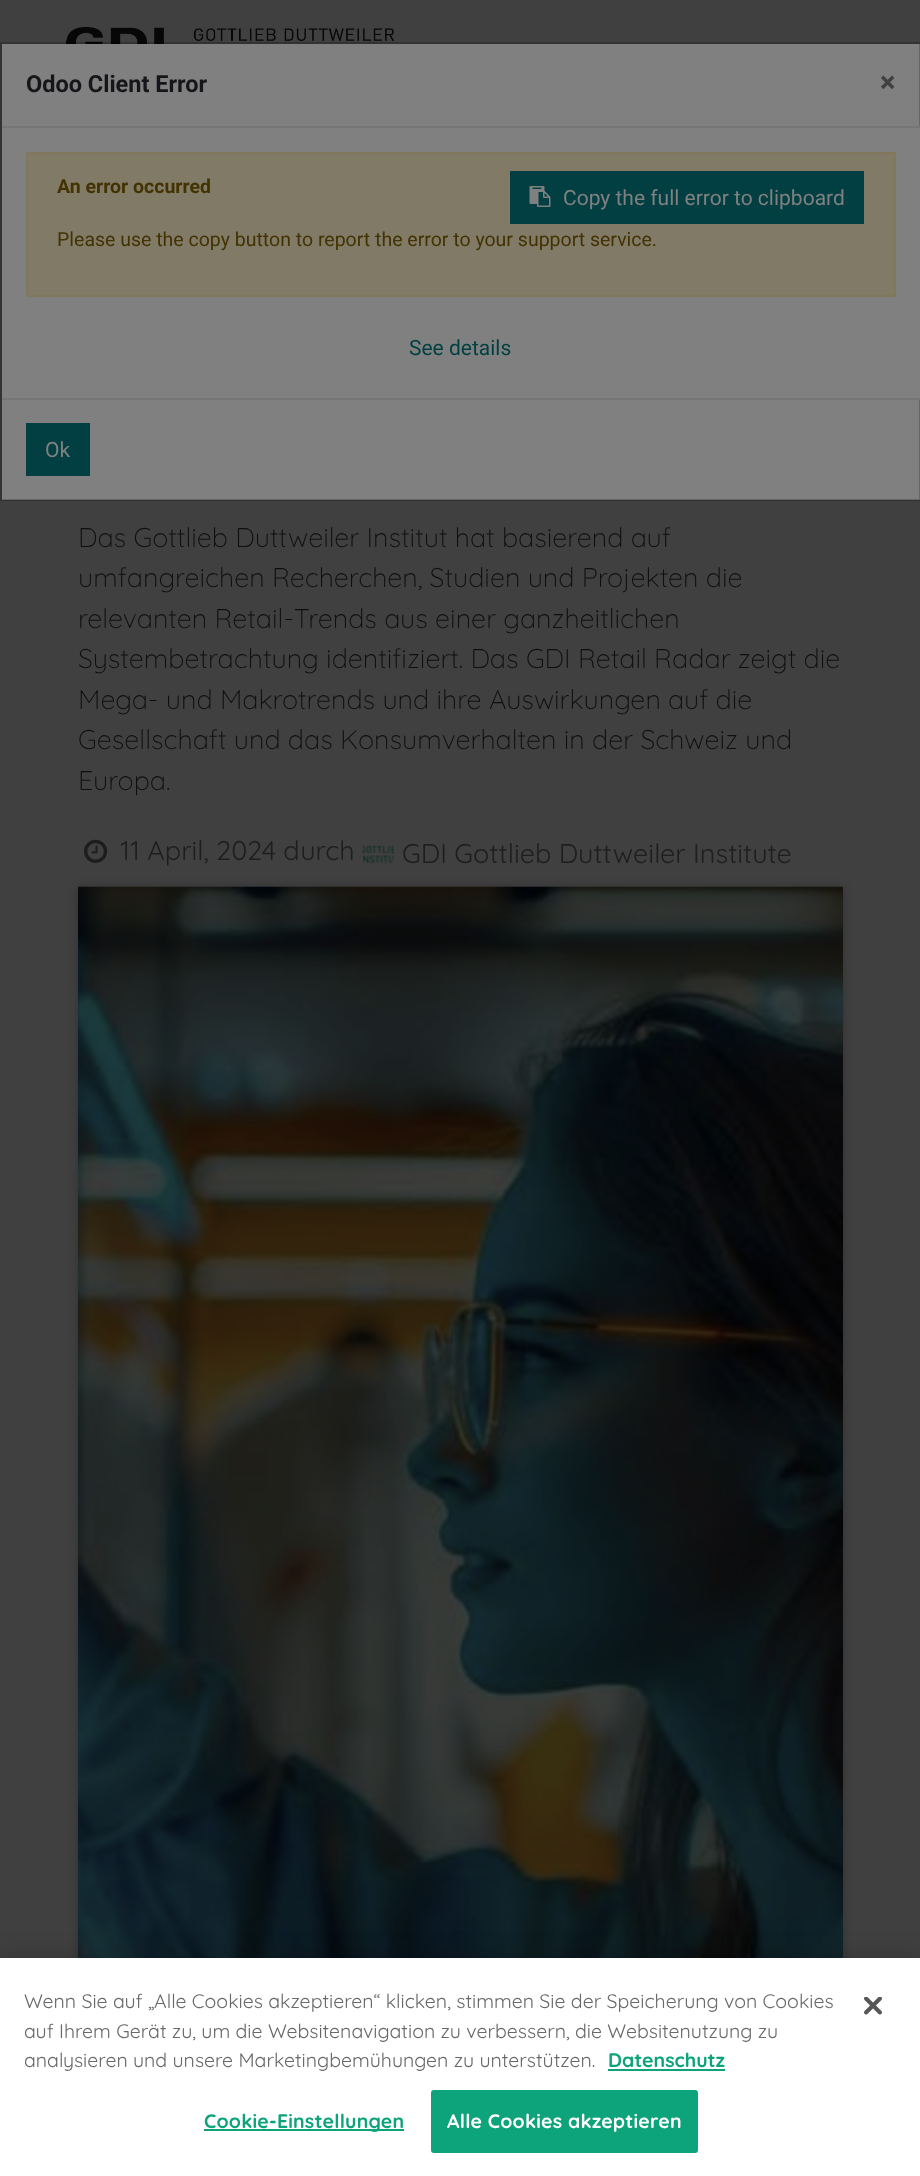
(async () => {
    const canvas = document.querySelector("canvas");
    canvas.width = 920;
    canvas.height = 2176;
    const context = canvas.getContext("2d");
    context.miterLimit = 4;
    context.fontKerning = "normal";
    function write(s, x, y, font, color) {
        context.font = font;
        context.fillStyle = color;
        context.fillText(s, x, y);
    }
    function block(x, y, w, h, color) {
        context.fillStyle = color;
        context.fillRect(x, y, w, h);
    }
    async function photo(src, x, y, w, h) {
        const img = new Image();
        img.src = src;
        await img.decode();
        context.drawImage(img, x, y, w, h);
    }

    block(0, 0, 920, 2176, "rgb(64, 64, 64)");
    block(2, 44, 918, 456, "rgb(128, 128, 128)");
    await photo("media/2.png", 64, 27, 331, 17);
    context.strokeStyle = "rgba(0, 0, 0, 0.2)";
    context.lineWidth = 2;
    context.strokeRect(1, 43, 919, 457);
    block(2, 126, 918, 2, "rgb(117, 118, 120)");
    write("Odoo Client Error", 26, 92, "bold 23.5px Roboto", "rgb(22, 22, 26)");
    write("×", 880, 92, "bold 29px Roboto", "rgb(64, 64, 64)");
    block(919, 128, 1, 270, "rgb(128, 128, 128)");
    context.fillStyle = "rgb(128, 122, 103)";
    context.beginPath();
    context.rect(27, 153, 868, 143);
    context.fill();
    context.strokeStyle = "rgb(128, 119, 93)";
    context.stroke();
    write("An error occurred", 57, 193, "bold 19.5px Roboto", "rgb(67, 50, 2)");
    block(510, 171, 354, 53, "rgb(1, 63, 66)");
    await photo("media/1.png", 529, 186, 22, 21);
    write("Copy the full error to clipboard", 563, 205, "21px Roboto", "rgb(128, 128, 128)");
    write("Please use the copy button to report the error to your support service.", 57, 246, "19.5px Roboto", "rgb(67, 50, 2)");
    write("See details", 409, 355, "21px Roboto", "rgb(1, 63, 66)");
    block(2, 398, 918, 2, "rgb(117, 118, 120)");
    block(26, 423, 64, 53, "rgb(1, 63, 66)");
    write("Ok", 45, 457, "21px Roboto", "rgb(128, 128, 128)");
    write("Das Gottlieb Duttweiler Institut hat basierend auf", 78, 547, "300 27px Quicksand", "rgb(13, 15, 16)");
    write("umfangreichen Recherchen, Studien und Projekten die", 78, 587, "300 27px Quicksand", "rgb(13, 15, 16)");
    write("relevanten Retail-Trends aus einer ganzheitlichen", 78, 628, "300 27px Quicksand", "rgb(13, 15, 16)");
    write("Systembetrachtung identifiziert. Das GDI Retail Radar zeigt die", 78, 668, "300 27px Quicksand", "rgb(13, 15, 16)");
    write("Mega- und Makrotrends und ihre Auswirkungen auf die", 78, 709, "300 27px Quicksand", "rgb(13, 15, 16)");
    write("Gesellschaft und das Konsumverhalten in der Schweiz und", 78, 749, "300 27px Quicksand", "rgb(13, 15, 16)");
    write("Europa.", 78, 790, "300 27px Quicksand", "rgb(13, 15, 16)");
    await photo("media/3.png", 84, 839, 24, 24);
    write("11 April, 2024 durch", 120, 860, "27px Quicksand", "rgb(29, 30, 31)");
    await photo("media/4.png", 361, 845, 34, 19);
    write("GDI Gottlieb Duttweiler Institute", 402, 863, "27px Quicksand", "rgb(29, 30, 31)");
    context.fillStyle = "rgba(0, 0, 0, 0.25)";
    context.filter = "blur(4px)";
    context.beginPath();
    context.rect(78, 887, 765, 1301);
    context.fill();
    context.filter = "none";
    await photo("media/5.png", 78, 886, 765, 1072);
    context.fillStyle = "rgba(0, 0, 0, 0.2)";
    context.filter = "blur(13.5px)";
    context.beginPath();
    context.rect(0, 1958, 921, 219);
    context.fill();
    context.filter = "none";
    block(0, 1958, 920, 218, "rgb(255, 255, 255)");
    write("Wenn Sie auf „Alle Cookies akzeptieren“ klicken, stimmen Sie der Speicherung von Cookies", 24, 2008, "19.5px Quicksand", "rgb(105, 105, 105)");
    write("auf Ihrem Gerät zu, um die Websitenavigation zu verbessern, die Websitenutzung zu", 24, 2038, "19.5px Quicksand", "rgb(105, 105, 105)");
    write("analysieren und unsere Marketingbemühungen zu unterstützen.", 24, 2067, "19.5px Quicksand", "rgb(105, 105, 105)");
    write("Datenschutz", 608, 2067, "bold 19.5px Quicksand", "rgb(13, 163, 123)");
    block(608, 2069, 117, 2, "rgb(13, 163, 123)");
    block(204, 2129, 200, 2, "rgb(13, 163, 123)");
    context.letterSpacing = "0.2px";
    write("Cookie-Einstellungen", 204, 2128, "bold 19.5px Quicksand", "rgb(13, 163, 123)");
    context.beginPath();
    context.roundRect(432, 2091, 265, 61, 2);
    context.fill();
    context.strokeStyle = "rgb(13, 163, 123)";
    context.stroke();
    write("Alle Cookies akzeptieren", 447, 2128, "bold 19.5px Quicksand", "rgb(255, 255, 255)");
    await photo("media/6.png", 864, 1997, 18, 18);
})();
